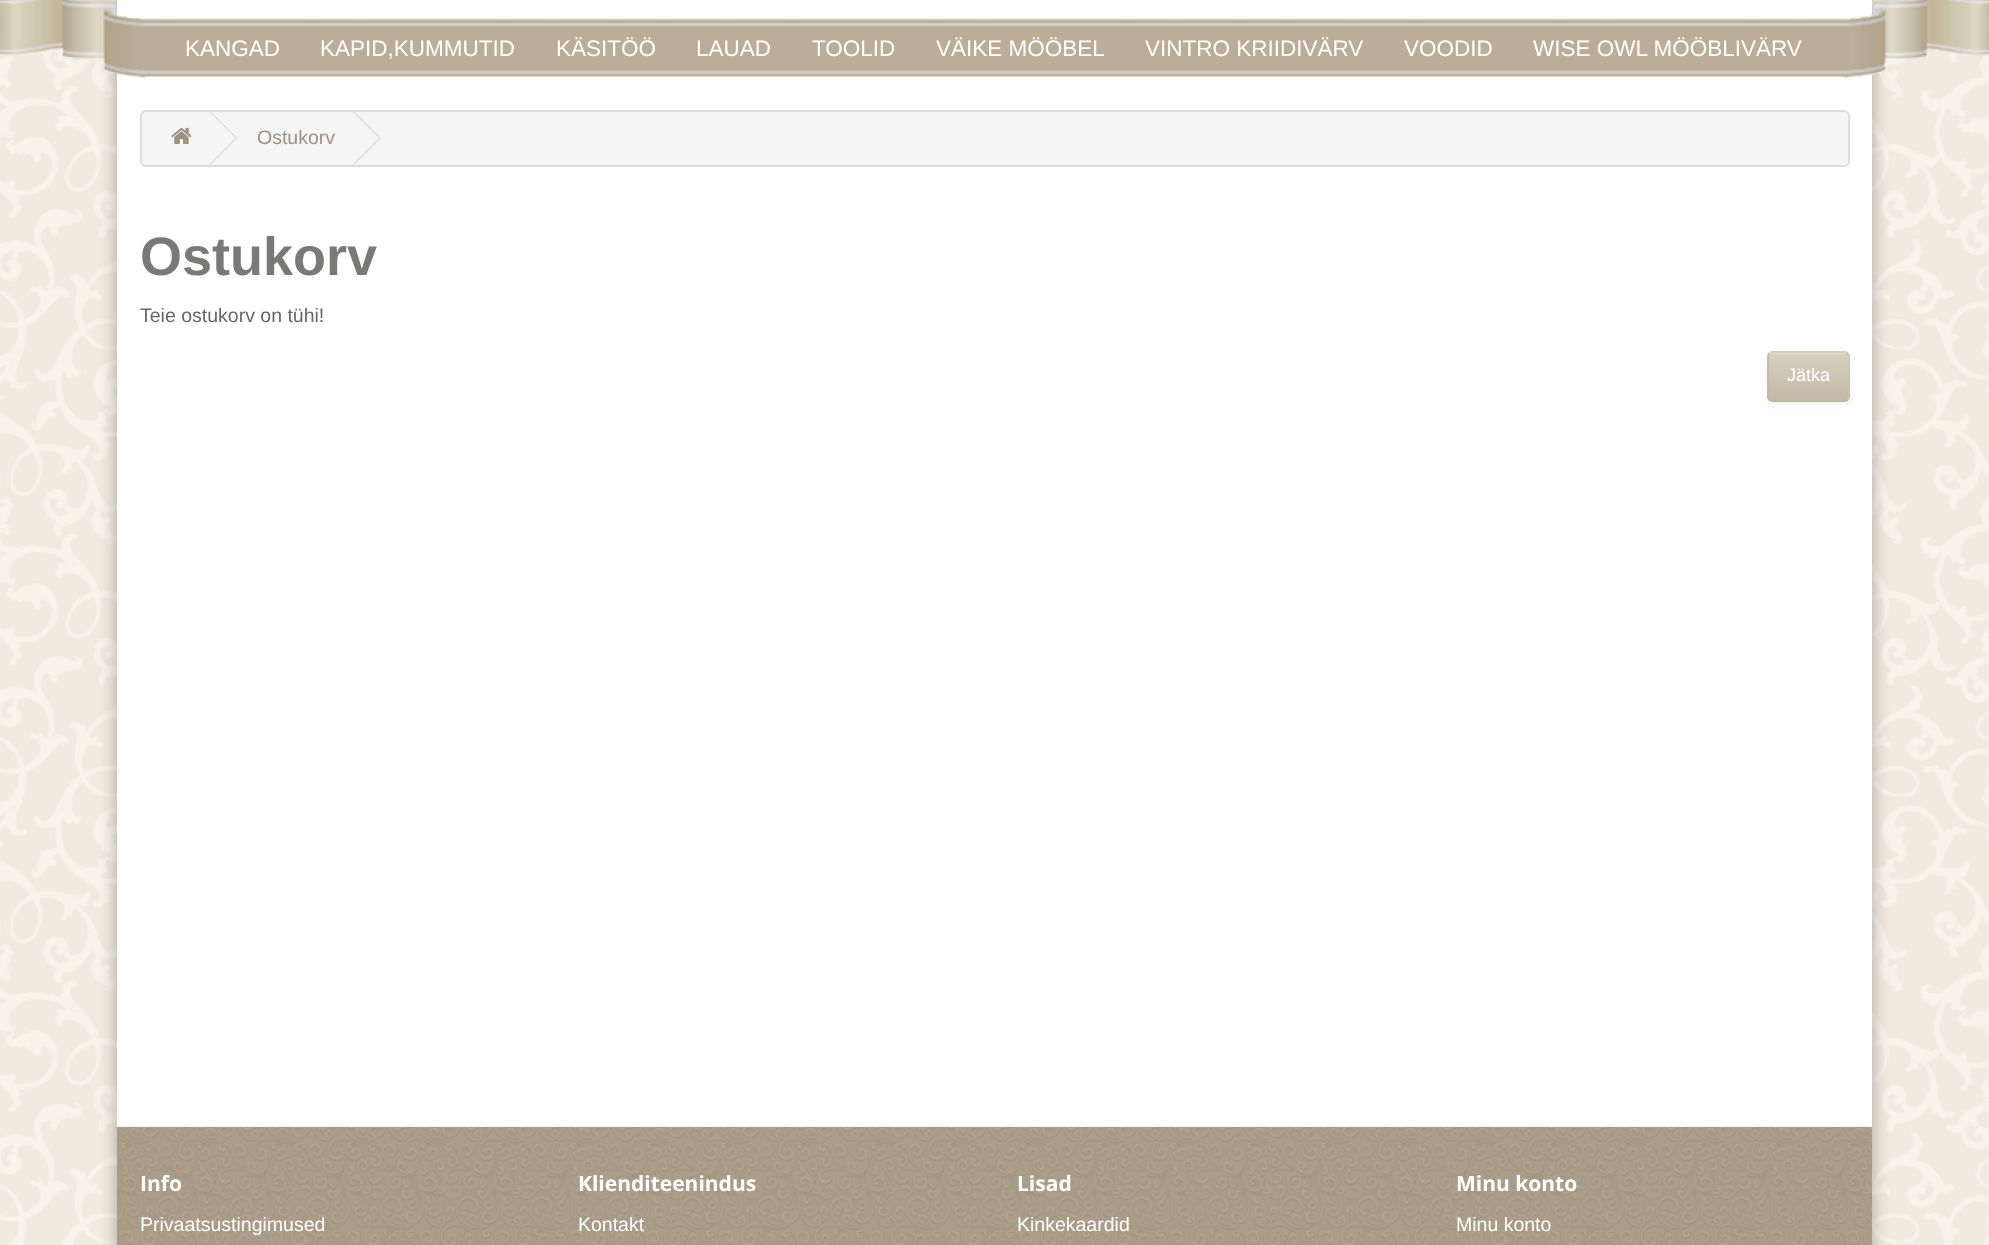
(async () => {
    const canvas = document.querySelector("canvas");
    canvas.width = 1989;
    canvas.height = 1245;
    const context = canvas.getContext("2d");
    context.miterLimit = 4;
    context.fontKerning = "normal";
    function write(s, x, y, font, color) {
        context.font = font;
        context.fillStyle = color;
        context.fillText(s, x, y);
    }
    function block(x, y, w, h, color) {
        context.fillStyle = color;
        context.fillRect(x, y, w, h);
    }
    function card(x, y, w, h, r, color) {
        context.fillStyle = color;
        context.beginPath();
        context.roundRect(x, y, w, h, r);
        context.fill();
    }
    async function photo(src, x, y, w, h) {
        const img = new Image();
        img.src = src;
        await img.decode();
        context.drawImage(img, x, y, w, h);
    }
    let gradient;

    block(0, 0, 1989, 1245, "rgb(255, 255, 255)");
    await photo("media/1.png", 0, 0, 1989, 1245);
    context.fillStyle = "rgba(0, 0, 0, 0.3)";
    context.filter = "blur(9px)";
    context.beginPath();
    context.roundRect(117, -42, 1755, 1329, 15);
    context.fill();
    context.filter = "none";
    block(117, 0, 1755, 1127, "rgb(255, 255, 255)");
    await photo("media/2.png", 0, 0, 1989, 79);
    await photo("media/3.png", 140, 18, 1709, 59);
    write("KANGAD", 185, 56, "22.5px Liberation Sans", "rgb(255, 255, 255)");
    write("KAPID,KUMMUTID", 320, 56, "22.5px Liberation Sans", "rgb(255, 255, 255)");
    write("KÄSITÖÖ", 556, 56, "22.5px Liberation Sans", "rgb(255, 255, 255)");
    write("LAUAD", 696, 56, "22.5px Liberation Sans", "rgb(255, 255, 255)");
    write("TOOLID", 812, 56, "22.5px Liberation Sans", "rgb(255, 255, 255)");
    write("VÄIKE MÖÖBEL", 936, 56, "22.5px Liberation Sans", "rgb(255, 255, 255)");
    write("VINTRO KRIIDIVÄRV", 1145, 56, "22.5px Liberation Sans", "rgb(255, 255, 255)");
    write("VOODID", 1404, 56, "22.5px Liberation Sans", "rgb(255, 255, 255)");
    write("WISE OWL MÖÖBLIVÄRV", 1533, 56, "22.5px Liberation Sans", "rgb(255, 255, 255)");
    context.fillStyle = "rgb(245, 245, 245)";
    context.beginPath();
    context.roundRect(141, 111, 1708, 55, 5);
    context.fill();
    context.strokeStyle = "rgb(221, 221, 221)";
    context.lineWidth = 2;
    context.stroke();
    await photo("media/4.png", 171, 127, 21, 17);
    context.fillStyle = "rgb(221, 221, 221)";
    context.beginPath();
    context.moveTo(209, 111.5);
    context.lineTo(210, 110.5);
    context.lineTo(237.5, 138);
    context.lineTo(236.5, 139);
    context.closePath();
    context.fill();
    context.beginPath();
    context.moveTo(209, 164.5);
    context.lineTo(236.5, 137);
    context.lineTo(237.5, 138);
    context.lineTo(210, 165.5);
    context.closePath();
    context.fill();
    write("Ostukorv", 257, 144, "19.5px Liberation Sans", "rgb(157, 145, 127)");
    context.fillStyle = "rgb(221, 221, 221)";
    context.beginPath();
    context.moveTo(352.5, 111.5);
    context.lineTo(353.5, 110.5);
    context.lineTo(381, 138);
    context.lineTo(380, 139);
    context.closePath();
    context.fill();
    context.beginPath();
    context.moveTo(352.5, 164.5);
    context.lineTo(380, 137);
    context.lineTo(381, 138);
    context.lineTo(353.5, 165.5);
    context.closePath();
    context.fill();
    write("Ostukorv", 140, 275, "bold 54px Liberation Sans", "rgb(123, 120, 120)");
    write("Teie ostukorv on tühi!", 140, 322, "19.5px Liberation Sans", "rgb(102, 102, 102)");
    context.fillStyle = "rgba(0, 0, 0, 0.05)";
    context.filter = "blur(1.5px)";
    context.beginPath();
    context.roundRect(1767, 353, 83, 51, 6);
    context.fill();
    context.filter = "none";
    card(1767, 351, 83, 51, 6, "rgb(195, 183, 165)");
    context.save();
    context.beginPath();
    context.roundRect(1767, 351, 83, 51, 6);
    context.clip();
    gradient = context.createLinearGradient(1808, 353, 1808, 401);
    gradient.addColorStop(0, "rgb(216, 209, 191)");
    gradient.addColorStop(1, "rgb(195, 183, 165)");
    context.fillStyle = gradient;
    context.fillRect(1767, 353, 83, 48);
    context.restore();
    context.fillStyle = "rgb(224, 218, 204)";
    context.beginPath();
    context.moveTo(1773, 354);
    context.lineTo(1844, 354);
    context.bezierCurveTo(1846, 354, 1848, 356, 1848, 358);
    context.bezierCurveTo(1848, 355, 1846, 353, 1843, 353);
    context.lineTo(1774, 353);
    context.bezierCurveTo(1772, 353, 1771, 354, 1770, 355);
    context.closePath();
    context.fill();
    context.beginPath();
    context.moveTo(1769.5, 353.5);
    context.bezierCurveTo(1770.5, 352.5, 1771.5, 352, 1773, 352);
    context.lineTo(1843.5, 352);
    context.bezierCurveTo(1845, 352, 1846, 352.5, 1847, 353.5);
    context.strokeStyle = "rgb(220, 213, 195)";
    context.lineWidth = 1.5;
    context.stroke();
    context.beginPath();
    context.moveTo(1847, 353.5);
    context.bezierCurveTo(1848, 354.5, 1849, 355.5, 1849, 357);
    context.lineTo(1849, 396);
    context.bezierCurveTo(1849, 397.5, 1848, 398.5, 1847, 399.5);
    context.strokeStyle = "rgb(204, 194, 176)";
    context.stroke();
    context.beginPath();
    context.moveTo(1847, 399.5);
    context.bezierCurveTo(1846, 400.5, 1845, 401, 1843.5, 401);
    context.lineTo(1773, 401);
    context.bezierCurveTo(1771.5, 401, 1770.5, 400.5, 1769.5, 399.5);
    context.bezierCurveTo(1768.5, 398.5, 1768, 397.5, 1768, 396);
    context.lineTo(1768, 357);
    context.bezierCurveTo(1768, 355.5, 1768.5, 354.5, 1769.5, 353.5);
    context.strokeStyle = "rgb(195, 183, 165)";
    context.stroke();
    write("Jätka", 1787, 381, "18px Liberation Sans", "rgb(255, 255, 255)");
    block(117, 1127, 1755, 118, "rgb(171, 159, 140)");
    await photo("media/5.png", 117, 1126, 1755, 119);
    write("Info", 140, 1191, "bold 21px Open Sans", "rgb(255, 255, 255)");
    write("Privaatsustingimused", 140, 1231, "19.5px Liberation Sans", "rgb(255, 255, 255)");
    write("Klienditeenindus", 578, 1191, "bold 21px Open Sans", "rgb(255, 255, 255)");
    write("Kontakt", 578, 1231, "19.5px Liberation Sans", "rgb(255, 255, 255)");
    write("Lisad", 1017, 1191, "bold 21px Open Sans", "rgb(255, 255, 255)");
    write("Kinkekaardid", 1017, 1231, "19.5px Liberation Sans", "rgb(255, 255, 255)");
    write("Minu konto", 1456, 1191, "bold 21px Open Sans", "rgb(255, 255, 255)");
    write("Minu konto", 1456, 1231, "19.5px Liberation Sans", "rgb(255, 255, 255)");
})();
